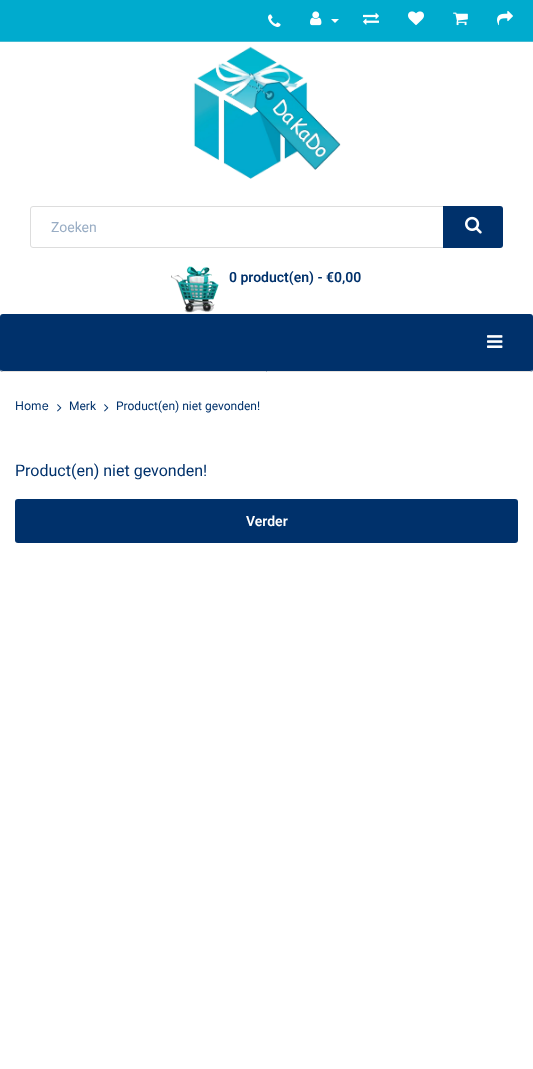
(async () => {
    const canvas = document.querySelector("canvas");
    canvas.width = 533;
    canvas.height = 1069;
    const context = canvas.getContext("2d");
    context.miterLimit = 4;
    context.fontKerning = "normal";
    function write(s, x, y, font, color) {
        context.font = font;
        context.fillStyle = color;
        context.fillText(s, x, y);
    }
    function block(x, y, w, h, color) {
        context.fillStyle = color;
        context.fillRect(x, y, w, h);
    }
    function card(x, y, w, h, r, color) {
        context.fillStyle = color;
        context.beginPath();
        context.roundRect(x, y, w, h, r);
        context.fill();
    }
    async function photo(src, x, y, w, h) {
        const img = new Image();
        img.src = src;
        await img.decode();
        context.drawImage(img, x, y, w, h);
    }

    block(0, 0, 533, 1069, "rgb(255, 255, 255)");
    block(0, 0, 533, 41, "rgb(0, 171, 206)");
    block(0, 41, 533, 1, "rgb(70, 188, 211)");
    await photo("media/1.png", 268, 14, 13, 13);
    await photo("media/2.png", 310, 11, 12, 15);
    context.fillStyle = "rgb(255, 255, 255)";
    context.beginPath();
    context.moveTo(331, 19);
    context.lineTo(339, 19);
    context.lineTo(335, 23);
    context.closePath();
    context.fill();
    await photo("media/3.png", 363, 12, 16, 13);
    await photo("media/4.png", 408, 11, 16, 15);
    await photo("media/5.png", 453, 12, 15, 14);
    await photo("media/6.png", 497, 10, 16, 16);
    await photo("media/7.png", 193, 46, 148, 133);
    context.beginPath();
    context.roundRect(30.5, 206.5, 467, 41, 2.5);
    context.strokeStyle = "rgb(221, 221, 221)";
    context.stroke();
    write("Zoeken", 51, 232, "14px Roboto", "rgb(153, 173, 196)");
    context.fillStyle = "rgb(0, 49, 107)";
    context.beginPath();
    context.roundRect(443, 206, 60, 42, [0, 3, 3, 0]);
    context.fill();
    await photo("media/8.png", 465, 216, 17, 18);
    await photo("media/9.png", 171, 266, 48, 47);
    write("0 product(en) - €0,00", 229, 282, "600 14px Roboto", "rgb(0, 49, 107)");
    card(0, 314, 533, 58, 3, "rgb(0, 49, 107)");
    context.beginPath();
    context.moveTo(532, 371);
    context.lineTo(530, 371.5);
    context.lineTo(3, 371.5);
    context.lineTo(1, 371);
    context.strokeStyle = "rgb(231, 226, 222)";
    context.stroke();
    await photo("media/10.png", 487, 335, 16, 13);
    write("Home", 15, 410, "12px Inter", "rgb(0, 49, 107)");
    await photo("media/11.png", 57, 404, 5, 8);
    write("Merk", 69, 410, "12px Roboto", "rgb(0, 49, 107)");
    await photo("media/11.png", 104, 404, 5, 8);
    write("Product(en) niet gevonden!", 116, 410, "12px Roboto", "rgb(0, 49, 107)");
    write("Product(en) niet gevonden!", 15, 476, "16px Roboto", "rgb(0, 49, 107)");
    card(15, 499, 503, 44, 3, "rgb(0, 49, 107)");
    write("Verder", 246, 526, "600 14px Roboto", "rgb(255, 255, 255)");
})();
